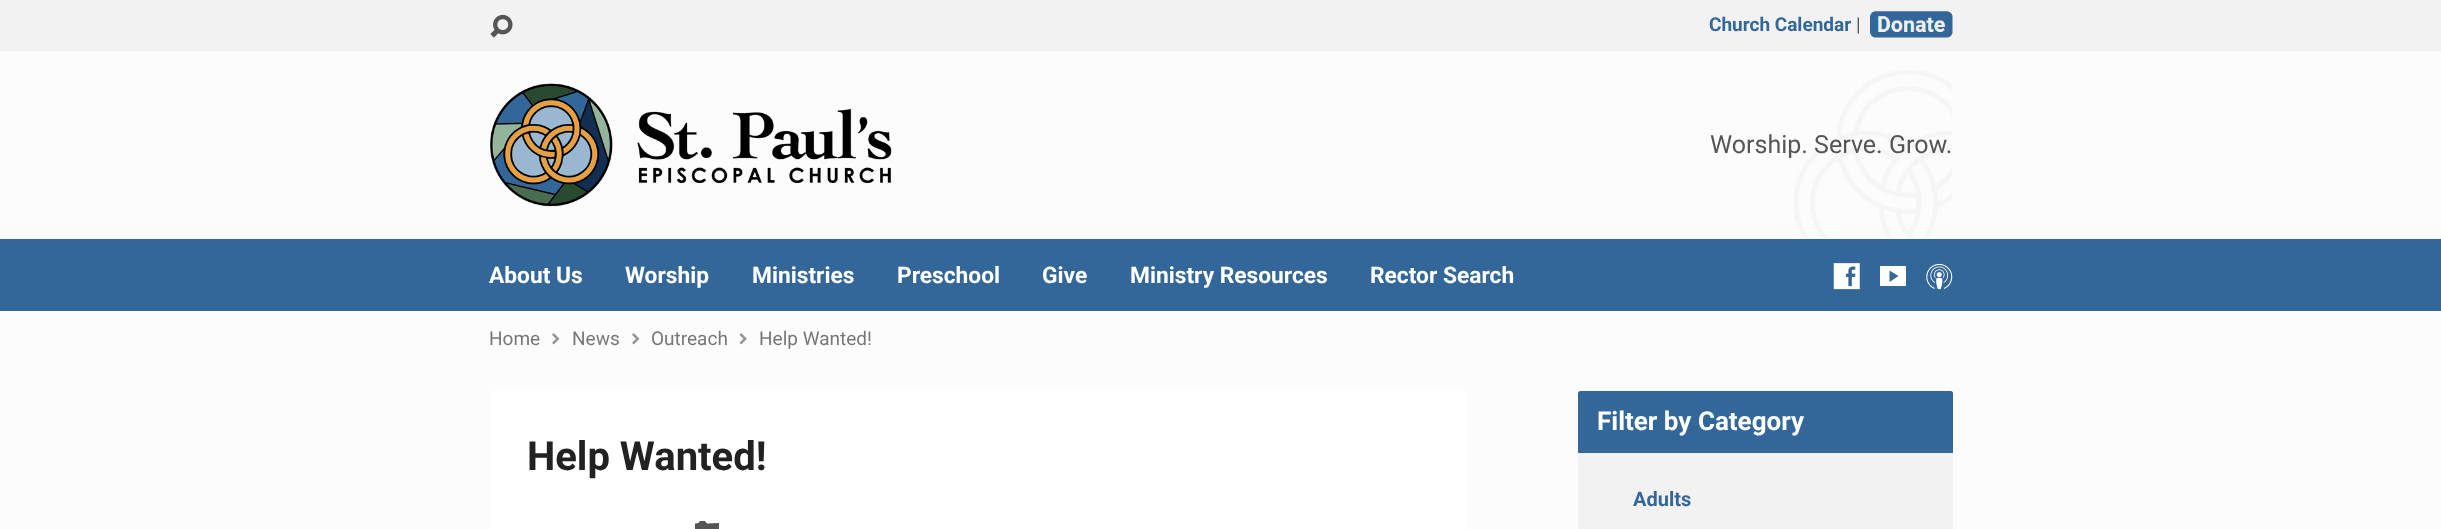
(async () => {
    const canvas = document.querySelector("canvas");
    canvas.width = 2441;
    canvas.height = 529;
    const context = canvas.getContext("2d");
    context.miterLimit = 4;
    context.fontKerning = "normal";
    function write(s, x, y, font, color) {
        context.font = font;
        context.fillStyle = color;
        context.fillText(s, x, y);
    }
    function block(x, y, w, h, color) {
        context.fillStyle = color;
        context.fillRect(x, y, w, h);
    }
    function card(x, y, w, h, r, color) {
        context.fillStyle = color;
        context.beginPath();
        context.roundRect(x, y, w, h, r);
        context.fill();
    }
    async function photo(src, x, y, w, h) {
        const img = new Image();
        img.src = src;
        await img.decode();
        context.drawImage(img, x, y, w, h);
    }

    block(0, 0, 2441, 529, "rgb(252, 252, 252)");
    block(0, 0, 2441, 51, "rgb(242, 242, 242)");
    await photo("media/1.png", 490, 14, 23, 24);
    write("Church Calendar", 1709, 31, "bold 19px Roboto", "rgb(51, 103, 153)");
    write("|", 1856, 31, "19px Roboto", "rgb(85, 85, 85)");
    await photo("media/2.png", 1870, 11, 83, 27);
    await photo("media/3.png", 1794, 70, 158, 168);
    await photo("media/4.png", 490, 83, 402, 124);
    write("Worship. Serve. Grow.", 1710, 153, "25px Roboto", "rgb(85, 85, 85)");
    block(0, 239, 2441, 72, "rgb(51, 103, 153)");
    write("About Us", 489, 283, "bold 22.75px Roboto", "rgb(255, 255, 255)");
    write("Worship", 625, 283, "bold 22.75px Roboto", "rgb(255, 255, 255)");
    write("Ministries", 752, 283, "bold 22.75px Roboto", "rgb(255, 255, 255)");
    write("Preschool", 897, 283, "bold 22.75px Roboto", "rgb(255, 255, 255)");
    write("Give", 1042, 283, "bold 22.75px Roboto", "rgb(255, 255, 255)");
    write("Ministry Resources", 1130, 283, "bold 22.75px Roboto", "rgb(255, 255, 255)");
    write("Rector Search", 1370, 283, "bold 22.75px Roboto", "rgb(255, 255, 255)");
    await photo("media/5.png", 1833, 263, 27, 27);
    context.beginPath();
    context.moveTo(1906, 286);
    context.lineTo(1880, 286);
    context.lineTo(1880, 266);
    context.lineTo(1906, 266);
    context.closePath();
    context.moveTo(1889.5, 282);
    context.lineTo(1898.5, 276);
    context.lineTo(1889.5, 270.5);
    context.closePath();
    context.fill();
    await photo("media/6.png", 1926, 263, 27, 27);
    write("Home", 489, 345, "19px Roboto", "rgb(119, 119, 119)");
    await photo("media/7.png", 552, 333, 8, 12);
    write("News", 572, 345, "19px Roboto", "rgb(119, 119, 119)");
    await photo("media/7.png", 632, 333, 8, 12);
    write("Outreach", 651, 345, "19px Roboto", "rgb(119, 119, 119)");
    await photo("media/8.png", 739, 333, 8, 12);
    write("Help Wanted!", 759, 345, "19px Roboto", "rgb(119, 119, 119)");
    block(490, 391, 975, 138, "rgb(255, 255, 255)");
    write("Help Wanted!", 527, 470, "bold 40px Roboto", "rgb(34, 34, 34)");
    context.fillStyle = "rgb(85, 85, 85)";
    context.beginPath();
    context.moveTo(700, 521);
    context.lineTo(698.5, 523);
    context.lineTo(695, 523.5);
    context.lineTo(695, 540.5);
    context.lineTo(719, 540.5);
    context.lineTo(719, 523);
    context.lineTo(707, 523.5);
    context.lineTo(705, 521);
    context.closePath();
    context.fill();
    card(1578, 391, 375, 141, 2.5, "rgb(242, 242, 242)");
    context.fillStyle = "rgb(51, 103, 153)";
    context.beginPath();
    context.roundRect(1578, 391, 375, 62, [2.5, 2.5, 0, 0]);
    context.fill();
    write("Filter by Category", 1597, 430, "bold 26px Roboto", "rgb(255, 255, 255)");
    write("Adults", 1633, 506, "bold 20px Roboto", "rgb(51, 103, 153)");
})();
